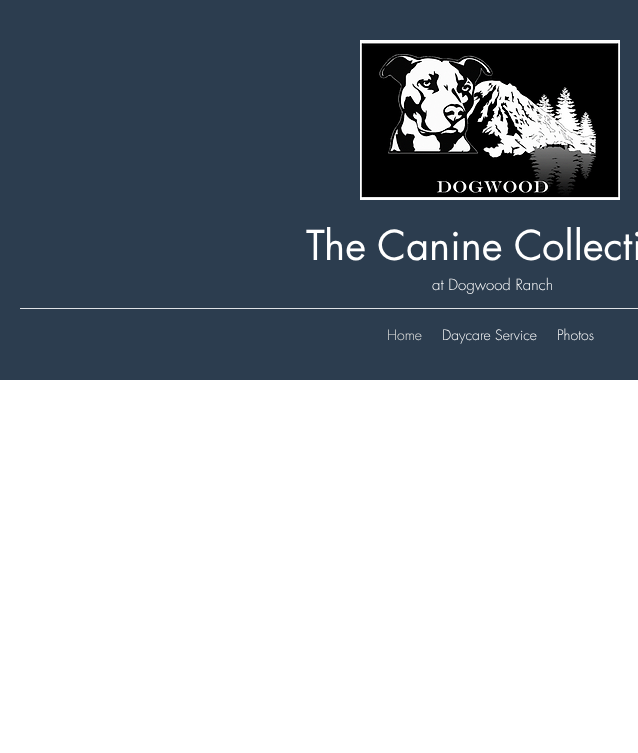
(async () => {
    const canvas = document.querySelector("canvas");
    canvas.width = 638;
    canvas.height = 753;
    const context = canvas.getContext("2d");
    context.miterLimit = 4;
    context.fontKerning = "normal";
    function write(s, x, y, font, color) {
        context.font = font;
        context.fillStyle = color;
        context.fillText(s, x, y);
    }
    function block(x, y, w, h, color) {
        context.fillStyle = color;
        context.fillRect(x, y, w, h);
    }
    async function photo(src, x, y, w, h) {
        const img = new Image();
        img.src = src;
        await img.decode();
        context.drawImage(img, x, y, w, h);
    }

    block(0, 0, 638, 753, "rgb(255, 255, 255)");
    block(0, 0, 638, 380, "rgb(44, 61, 79)");
    await photo("media/1.png", 360, 40, 260, 160);
    write("The Canine Collecti", 306, 260, "40px futura", "rgb(255, 255, 255)");
    write("at Dogwood Ranch", 432, 290, "300 15px futura", "rgb(255, 255, 255)");
    block(20, 308, 618, 1, "rgb(223, 226, 229)");
    write("Home", 387, 340, "300 14px futura", "rgb(228, 228, 225)");
    write("Daycare Service", 442, 340, "300 14px futura", "rgb(255, 255, 255)");
    write("Photos", 557, 340, "300 14px futura", "rgb(255, 255, 255)");
})();
